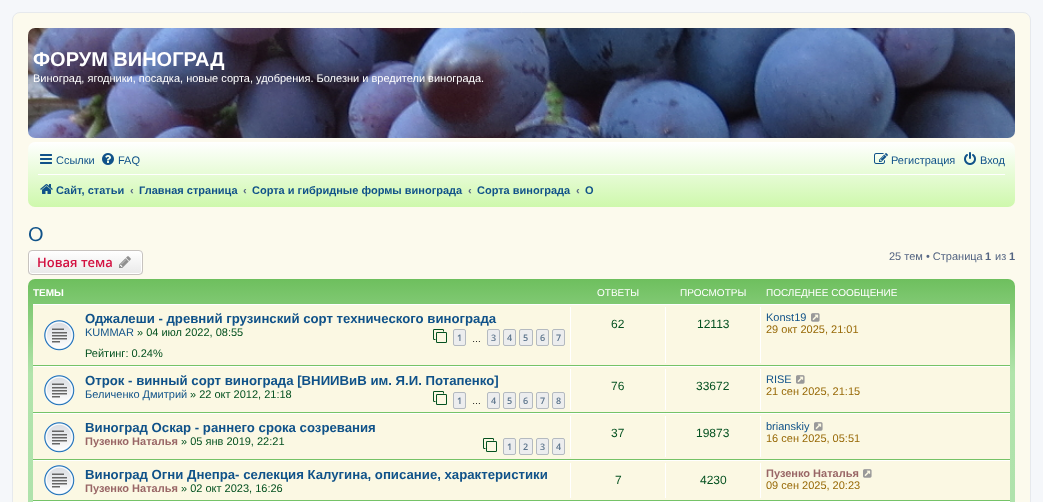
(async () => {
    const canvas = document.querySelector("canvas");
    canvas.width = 1043;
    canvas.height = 502;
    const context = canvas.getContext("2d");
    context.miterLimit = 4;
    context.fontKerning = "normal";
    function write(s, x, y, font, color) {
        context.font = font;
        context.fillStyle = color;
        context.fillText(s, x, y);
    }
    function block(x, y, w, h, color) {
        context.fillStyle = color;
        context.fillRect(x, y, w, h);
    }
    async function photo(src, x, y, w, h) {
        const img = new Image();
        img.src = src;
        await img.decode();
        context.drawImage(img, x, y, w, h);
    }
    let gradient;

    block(0, 0, 1043, 502, "rgb(245, 247, 250)");
    context.fillStyle = "rgb(252, 250, 237)";
    context.beginPath();
    context.roundRect(12.5, 12.5, 1018, 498, 7.5);
    context.fill();
    context.strokeStyle = "rgb(230, 233, 237)";
    context.stroke();
    await photo("media/1.png", 28, 28, 987, 110);
    write("ФОРУМ ВИНОГРАД", 33, 66, "bold 20px Liberation Sans", "rgb(255, 255, 255)");
    write("Виноград, ягодники, посадка, новые сорта, удобрения. Болезни и вредители винограда.", 33, 82, "11px Liberation Sans", "rgb(255, 255, 255)");
    gradient = context.createLinearGradient(522, 142, 522, 207);
    gradient.addColorStop(0, "rgb(255, 255, 255)");
    gradient.addColorStop(1, "rgb(206, 248, 172)");
    context.fillStyle = gradient;
    context.beginPath();
    context.roundRect(28, 142, 987, 65, 7);
    context.fill();
    await photo("media/2.png", 40, 154, 12, 10);
    write("Ссылки", 56, 164, "11px Liberation Sans", "rgb(16, 82, 137)");
    await photo("media/3.png", 102, 153, 12, 12);
    write("FAQ", 118, 164, "11px Liberation Sans", "rgb(16, 82, 137)");
    await photo("media/4.png", 874, 153, 14, 11);
    write("Регистрация", 891, 164, "11px Liberation Sans", "rgb(16, 82, 137)");
    await photo("media/5.png", 964, 152, 12, 13);
    write("Вход", 980, 164, "11px Liberation Sans", "rgb(16, 82, 137)");
    block(38, 174, 967, 1, "rgb(255, 255, 255)");
    await photo("media/6.png", 40, 184, 13, 10);
    write("Сайт, статьи", 56, 194, "bold 11px Liberation Sans", "rgb(16, 82, 137)");
    write("‹", 130, 194, "bold 11px Liberation Sans", "rgb(83, 100, 130)");
    write("Главная страница", 139, 194, "bold 11px Liberation Sans", "rgb(16, 82, 137)");
    write("‹", 243, 194, "bold 11px Liberation Sans", "rgb(83, 100, 130)");
    write("Сорта и гибридные формы винограда", 252, 194, "bold 11px Liberation Sans", "rgb(16, 82, 137)");
    write("‹", 468, 194, "bold 11px Liberation Sans", "rgb(83, 100, 130)");
    write("Сорта винограда", 477, 194, "bold 11px Liberation Sans", "rgb(16, 82, 137)");
    write("‹", 576, 194, "bold 11px Liberation Sans", "rgb(83, 100, 130)");
    write("О", 585, 194, "bold 11px Liberation Sans", "rgb(16, 82, 137)");
    write("О", 28, 241, "20px Liberation Sans", "rgb(16, 82, 137)");
    context.save();
    context.beginPath();
    context.roundRect(28, 250, 115, 25, 4);
    context.clip();
    gradient = context.createLinearGradient(86, 251, 86, 274);
    gradient.addColorStop(0, "rgb(255, 255, 255)");
    gradient.addColorStop(1, "rgb(233, 233, 233)");
    context.fillStyle = gradient;
    context.fillRect(28, 251, 115, 23);
    context.restore();
    context.beginPath();
    context.roundRect(29.5, 251.5, 112, 22, 2.5);
    context.strokeStyle = "rgb(255, 255, 255)";
    context.stroke();
    context.beginPath();
    context.roundRect(28.5, 250.5, 114, 24, 3.5);
    context.strokeStyle = "rgb(199, 195, 191)";
    context.stroke();
    write("Новая тема", 37, 267, "600 13px Open Sans", "rgb(211, 17, 65)");
    await photo("media/7.png", 119, 256, 12, 12);
    write("25 тем • Страница", 889, 260, "11px Liberation Sans", "rgb(83, 100, 130)");
    write("1", 985, 260, "bold 11px Liberation Sans", "rgb(83, 100, 130)");
    write("из", 995, 260, "11px Liberation Sans", "rgb(83, 100, 130)");
    write("1", 1009, 260, "bold 11px Liberation Sans", "rgb(83, 100, 130)");
    gradient = context.createLinearGradient(521, 279, 522, 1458);
    gradient.addColorStop(0, "rgb(14, 149, 62)");
    gradient.addColorStop(0, "rgb(110, 191, 94)");
    gradient.addColorStop(0.08, "rgb(177, 228, 171)");
    gradient.addColorStop(1, "rgb(161, 211, 179)");
    context.fillStyle = gradient;
    context.beginPath();
    context.roundRect(28, 279, 987, 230, 7);
    context.fill();
    write("ТЕМЫ", 33, 296, "bold 10px Liberation Sans", "rgb(255, 255, 255)");
    write("ОТВЕТЫ", 597, 296, "10px Liberation Sans", "rgb(255, 255, 255)");
    write("ПРОСМОТРЫ", 680, 296, "10px Liberation Sans", "rgb(255, 255, 255)");
    write("ПОСЛЕДНЕЕ СООБЩЕНИЕ", 766, 296, "10px Liberation Sans", "rgb(255, 255, 255)");
    block(33, 305, 977, 60, "rgb(251, 248, 227)");
    block(33, 304, 977, 1, "rgb(255, 255, 255)");
    block(33, 365, 977, 1, "rgb(117, 195, 103)");
    await photo("media/8.png", 44, 320, 31, 31);
    write("Оджалеши - древний грузинский сорт технического винограда", 85, 323, "bold 13.2px Liberation Sans", "rgb(16, 82, 137)");
    write("KUMMAR", 85, 336, "11px Liberation Sans", "rgb(16, 82, 137)");
    write("» 04 июл 2022, 08:55", 137, 336, "11px Liberation Sans", "rgb(4, 81, 32)");
    await photo("media/9.png", 433, 329, 14, 14);
    context.fillStyle = "rgb(236, 237, 238)";
    context.beginPath();
    context.roundRect(453.5, 329.5, 12, 16, 1.5);
    context.fill();
    context.strokeStyle = "rgb(180, 186, 192)";
    context.stroke();
    write("1", 457, 341, "600 9px Open Sans", "rgb(92, 117, 140)");
    context.fillStyle = "rgb(236, 237, 238)";
    context.beginPath();
    context.roundRect(487.5, 329.5, 12, 16, 1.5);
    context.fill();
    context.stroke();
    write("3", 491, 341, "600 9px Open Sans", "rgb(92, 117, 140)");
    context.fillStyle = "rgb(236, 237, 238)";
    context.beginPath();
    context.roundRect(503.5, 329.5, 12, 16, 1.5);
    context.fill();
    context.stroke();
    write("4", 507, 341, "600 9px Open Sans", "rgb(92, 117, 140)");
    context.fillStyle = "rgb(236, 237, 238)";
    context.beginPath();
    context.roundRect(519.5, 329.5, 13, 16, 1.5);
    context.fill();
    context.stroke();
    write("5", 523, 341, "600 9px Open Sans", "rgb(92, 117, 140)");
    context.fillStyle = "rgb(236, 237, 238)";
    context.beginPath();
    context.roundRect(536.5, 329.5, 12, 16, 1.5);
    context.fill();
    context.stroke();
    write("6", 540, 341, "600 9px Open Sans", "rgb(92, 117, 140)");
    context.fillStyle = "rgb(236, 237, 238)";
    context.beginPath();
    context.roundRect(552.5, 329.5, 12, 16, 1.5);
    context.fill();
    context.stroke();
    write("7", 556, 341, "600 9px Open Sans", "rgb(92, 117, 140)");
    write("…", 472, 342, "9px Liberation Sans", "rgb(0, 0, 0)");
    write("Рейтинг: 0.24%", 85, 357, "11px Liberation Sans", "rgb(4, 81, 32)");
    block(570, 307, 1, 56, "rgb(255, 255, 255)");
    write("62", 611, 328, "12px Liberation Sans", "rgb(4, 81, 32)");
    block(665, 307, 1, 56, "rgb(255, 255, 255)");
    write("12113", 697, 328, "12px Liberation Sans", "rgb(4, 81, 32)");
    block(760, 307, 1, 56, "rgb(255, 255, 255)");
    write("Konst19", 766, 321, "11px Liberation Sans", "rgb(16, 82, 137)");
    await photo("media/10.png", 811, 313, 9, 9);
    write("29 окт 2025, 21:01", 766, 333, "11px Liberation Sans", "rgb(152, 106, 8)");
    block(33, 367, 977, 45, "rgb(251, 248, 227)");
    block(33, 366, 977, 1, "rgb(255, 255, 255)");
    block(33, 412, 977, 1, "rgb(117, 195, 103)");
    await photo("media/8.png", 44, 375, 31, 31);
    write("Отрок - винный сорт винограда [ВНИИВиВ им. Я.И. Потапенко]", 85, 385, "bold 13.2px Liberation Sans", "rgb(16, 82, 137)");
    write("Беличенко Дмитрий", 85, 398, "11px Liberation Sans", "rgb(16, 82, 137)");
    write("» 22 окт 2012, 21:18", 190, 398, "11px Liberation Sans", "rgb(4, 81, 32)");
    await photo("media/9.png", 433, 391, 14, 14);
    context.fillStyle = "rgb(236, 237, 238)";
    context.beginPath();
    context.roundRect(453.5, 392.5, 12, 16, 1.5);
    context.fill();
    context.stroke();
    write("1", 457, 404, "600 9px Open Sans", "rgb(92, 117, 140)");
    write("…", 472, 404, "9px Liberation Sans", "rgb(0, 0, 0)");
    context.fillStyle = "rgb(236, 237, 238)";
    context.beginPath();
    context.roundRect(487.5, 392.5, 12, 16, 1.5);
    context.fill();
    context.stroke();
    write("4", 491, 404, "600 9px Open Sans", "rgb(92, 117, 140)");
    context.fillStyle = "rgb(236, 237, 238)";
    context.beginPath();
    context.roundRect(503.5, 392.5, 12, 16, 1.5);
    context.fill();
    context.stroke();
    write("5", 507, 404, "600 9px Open Sans", "rgb(92, 117, 140)");
    context.fillStyle = "rgb(236, 237, 238)";
    context.beginPath();
    context.roundRect(519.5, 392.5, 13, 16, 1.5);
    context.fill();
    context.stroke();
    write("6", 523, 404, "600 9px Open Sans", "rgb(92, 117, 140)");
    context.fillStyle = "rgb(236, 237, 238)";
    context.beginPath();
    context.roundRect(536.5, 392.5, 12, 16, 1.5);
    context.fill();
    context.stroke();
    write("7", 540, 404, "600 9px Open Sans", "rgb(92, 117, 140)");
    context.fillStyle = "rgb(236, 237, 238)";
    context.beginPath();
    context.roundRect(552.5, 392.5, 12, 16, 1.5);
    context.fill();
    context.stroke();
    write("8", 556, 404, "600 9px Open Sans", "rgb(92, 117, 140)");
    block(570, 369, 1, 41, "rgb(255, 255, 255)");
    write("76", 611, 390, "12px Liberation Sans", "rgb(4, 81, 32)");
    block(665, 369, 1, 41, "rgb(255, 255, 255)");
    write("33672", 696, 390, "12px Liberation Sans", "rgb(4, 81, 32)");
    block(760, 369, 1, 41, "rgb(255, 255, 255)");
    write("RISE", 766, 383, "11px Liberation Sans", "rgb(16, 82, 137)");
    await photo("media/10.png", 796, 375, 9, 9);
    write("21 сен 2025, 21:15", 766, 395, "11px Liberation Sans", "rgb(152, 106, 8)");
    block(33, 414, 977, 45, "rgb(251, 248, 227)");
    block(33, 413, 977, 1, "rgb(255, 255, 255)");
    block(33, 459, 977, 1, "rgb(117, 195, 103)");
    await photo("media/8.png", 44, 422, 31, 31);
    write("Виноград Оскар - раннего срока созревания", 85, 432, "bold 13.2px Liberation Sans", "rgb(16, 82, 137)");
    write("Пузенко Наталья", 85, 445, "bold 11px Liberation Sans", "rgb(153, 102, 102)");
    write("» 05 янв 2019, 22:21", 181, 445, "11px Liberation Sans", "rgb(4, 81, 32)");
    await photo("media/9.png", 483, 438, 14, 14);
    context.fillStyle = "rgb(236, 237, 238)";
    context.beginPath();
    context.roundRect(503.5, 438.5, 12, 16, 1.5);
    context.fill();
    context.stroke();
    write("1", 507, 450, "600 9px Open Sans", "rgb(92, 117, 140)");
    context.fillStyle = "rgb(236, 237, 238)";
    context.beginPath();
    context.roundRect(519.5, 438.5, 13, 16, 1.5);
    context.fill();
    context.stroke();
    write("2", 523, 450, "600 9px Open Sans", "rgb(92, 117, 140)");
    context.fillStyle = "rgb(236, 237, 238)";
    context.beginPath();
    context.roundRect(536.5, 438.5, 12, 16, 1.5);
    context.fill();
    context.stroke();
    write("3", 540, 450, "600 9px Open Sans", "rgb(92, 117, 140)");
    context.fillStyle = "rgb(236, 237, 238)";
    context.beginPath();
    context.roundRect(552.5, 438.5, 12, 16, 1.5);
    context.fill();
    context.stroke();
    write("4", 556, 450, "600 9px Open Sans", "rgb(92, 117, 140)");
    block(570, 416, 1, 41, "rgb(255, 255, 255)");
    write("37", 611, 437, "12px Liberation Sans", "rgb(4, 81, 32)");
    block(665, 416, 1, 41, "rgb(255, 255, 255)");
    write("19873", 696, 437, "12px Liberation Sans", "rgb(4, 81, 32)");
    block(760, 416, 1, 41, "rgb(255, 255, 255)");
    write("brianskiy", 766, 430, "11px Liberation Sans", "rgb(16, 82, 137)");
    await photo("media/10.png", 814, 422, 9, 9);
    write("16 сен 2025, 05:51", 766, 442, "11px Liberation Sans", "rgb(152, 106, 8)");
    block(33, 461, 977, 39, "rgb(251, 248, 227)");
    block(33, 460, 977, 1, "rgb(255, 255, 255)");
    block(33, 500, 977, 1, "rgb(117, 195, 103)");
    await photo("media/8.png", 44, 465, 31, 31);
    write("Виноград Огни Днепра- селекция Калугина, описание, характеристики", 85, 479, "bold 13.2px Liberation Sans", "rgb(16, 82, 137)");
    write("Пузенко Наталья", 85, 492, "bold 11px Liberation Sans", "rgb(153, 102, 102)");
    write("» 02 окт 2023, 16:26", 181, 492, "11px Liberation Sans", "rgb(4, 81, 32)");
    block(570, 463, 1, 35, "rgb(255, 255, 255)");
    write("7", 615, 484, "12px Liberation Sans", "rgb(4, 81, 32)");
    block(665, 463, 1, 35, "rgb(255, 255, 255)");
    write("4230", 700, 484, "12px Liberation Sans", "rgb(4, 81, 32)");
    block(760, 463, 1, 35, "rgb(255, 255, 255)");
    write("Пузенко Наталья", 766, 477, "bold 11px Liberation Sans", "rgb(153, 102, 102)");
    await photo("media/10.png", 863, 469, 9, 9);
    write("09 сен 2025, 20:23", 766, 489, "11px Liberation Sans", "rgb(152, 106, 8)");
    block(33, 501, 977, 1, "rgb(255, 255, 255)");
})();
